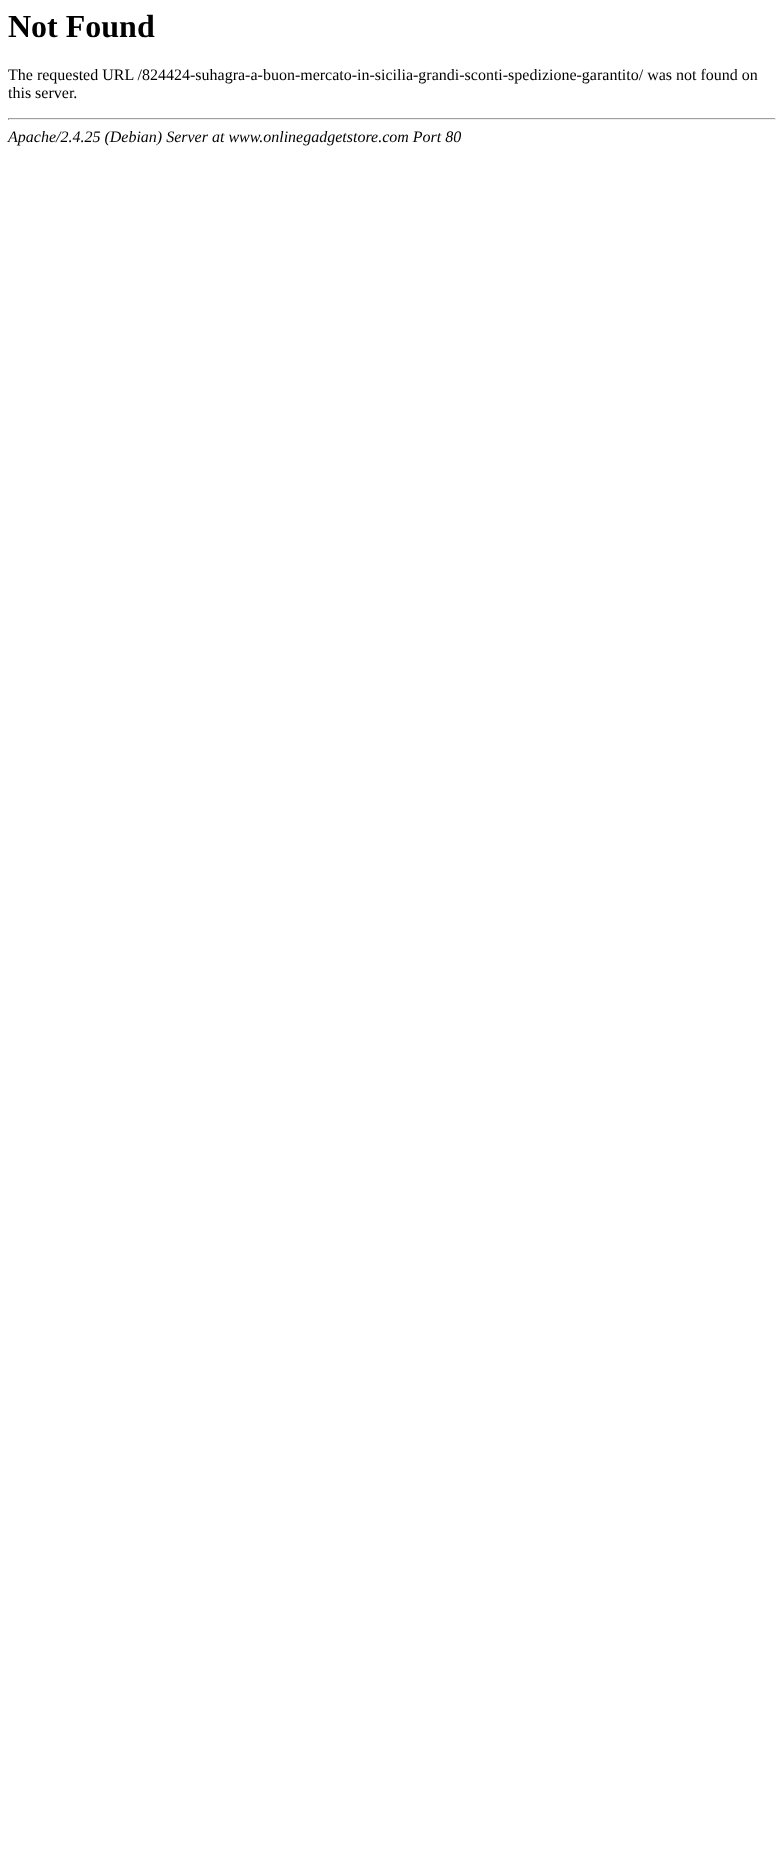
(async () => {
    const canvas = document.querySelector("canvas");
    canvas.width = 784;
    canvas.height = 1850;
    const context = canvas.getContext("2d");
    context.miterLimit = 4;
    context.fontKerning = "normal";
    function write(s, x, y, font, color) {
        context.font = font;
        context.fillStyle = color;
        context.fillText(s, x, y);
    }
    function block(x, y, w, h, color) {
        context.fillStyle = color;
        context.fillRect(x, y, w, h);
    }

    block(0, 0, 784, 1850, "rgb(255, 255, 255)");
    write("Not Found", 8, 37, "bold 32px Liberation Serif", "rgb(0, 0, 0)");
    write("The requested URL /824424-suhagra-a-buon-mercato-in-sicilia-grandi-sconti-spedizione-garantito/ was not found on", 8, 80, "16px Liberation Serif", "rgb(0, 0, 0)");
    write("this server.", 8, 98, "16px Liberation Serif", "rgb(0, 0, 0)");
    block(8, 118, 768, 1, "rgb(159, 159, 159)");
    block(775, 118, 1, 2, "rgb(238, 238, 238)");
    block(8, 119, 768, 1, "rgb(238, 238, 238)");
    block(8, 118, 1, 2, "rgb(159, 159, 159)");
    write("Apache/2.4.25 (Debian) Server at www.onlinegadgetstore.com Port 80", 8, 142, "italic 16px Liberation Serif", "rgb(0, 0, 0)");
})();
